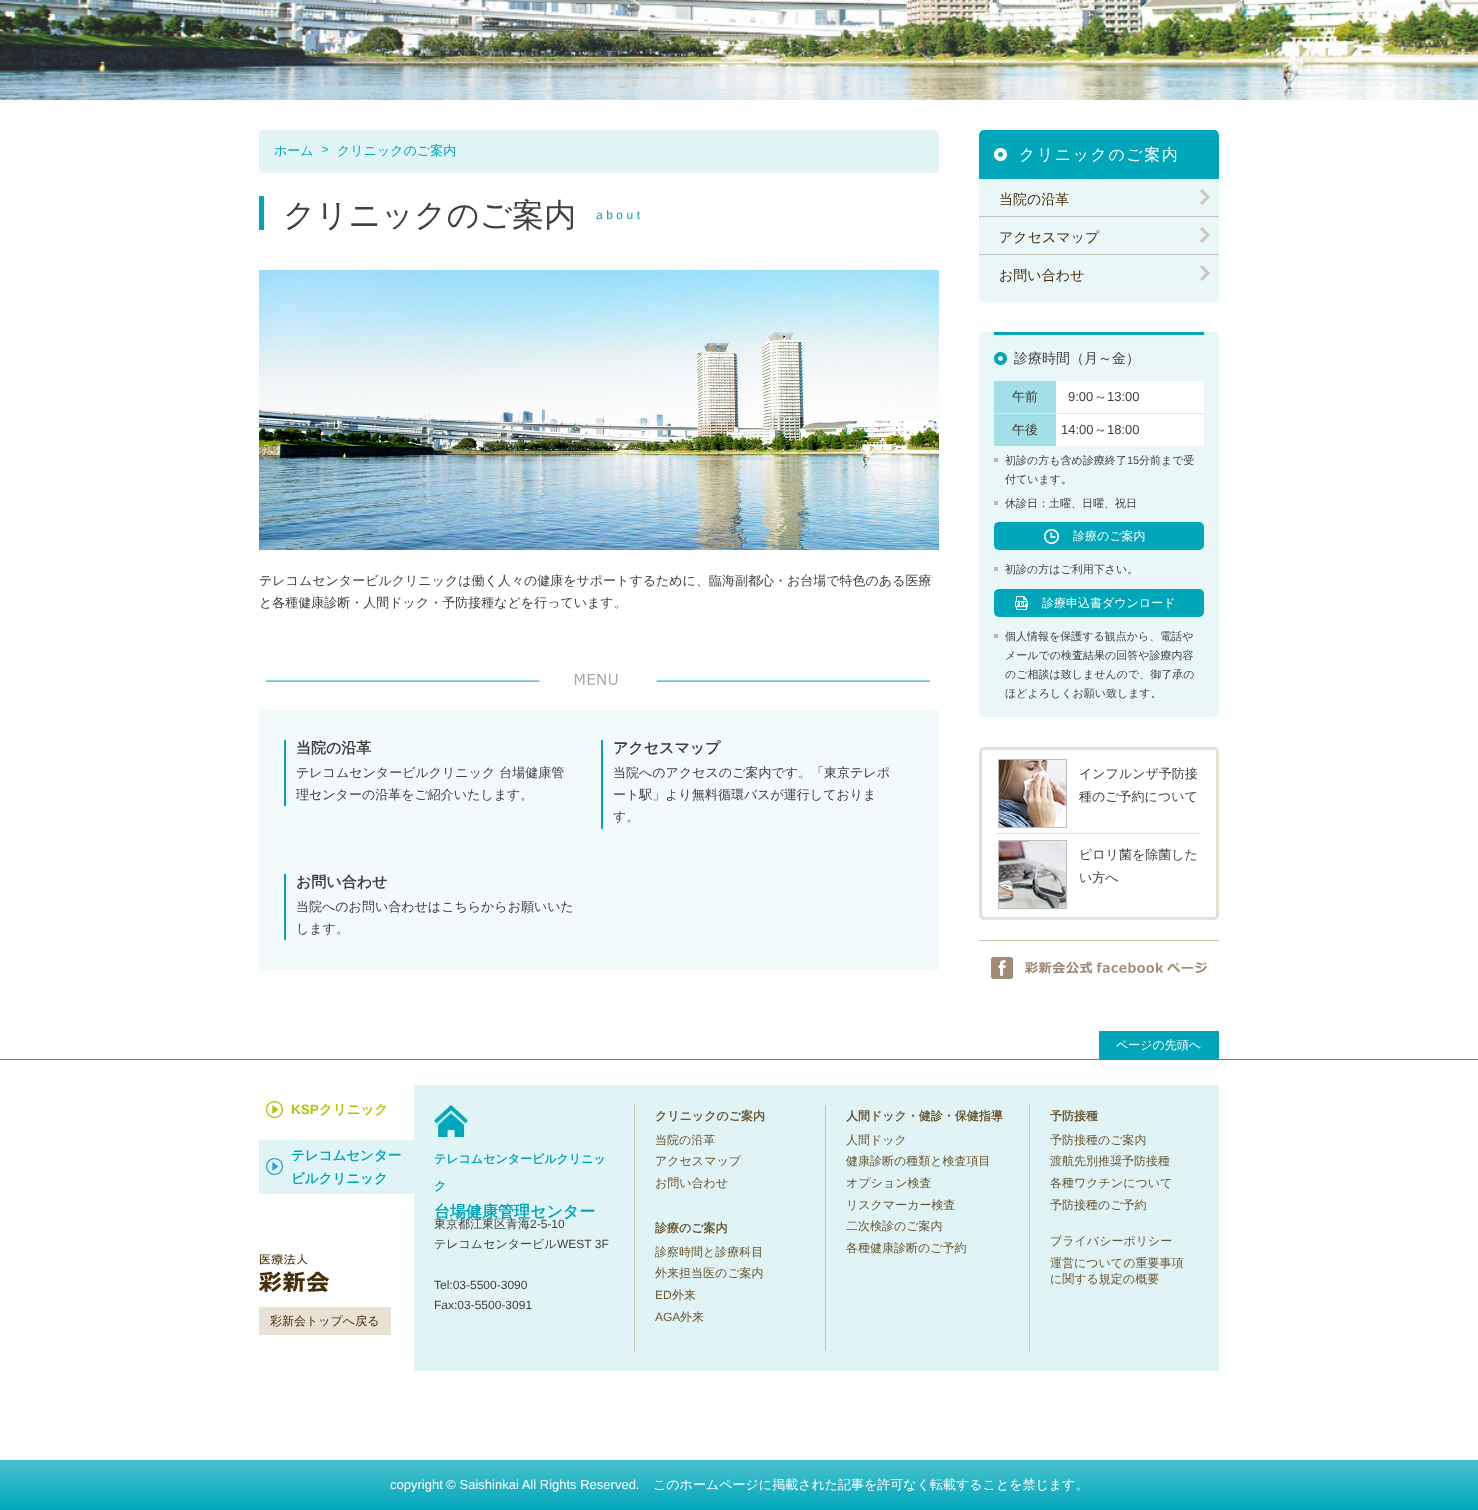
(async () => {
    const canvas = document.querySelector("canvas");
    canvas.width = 1478;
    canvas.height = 1510;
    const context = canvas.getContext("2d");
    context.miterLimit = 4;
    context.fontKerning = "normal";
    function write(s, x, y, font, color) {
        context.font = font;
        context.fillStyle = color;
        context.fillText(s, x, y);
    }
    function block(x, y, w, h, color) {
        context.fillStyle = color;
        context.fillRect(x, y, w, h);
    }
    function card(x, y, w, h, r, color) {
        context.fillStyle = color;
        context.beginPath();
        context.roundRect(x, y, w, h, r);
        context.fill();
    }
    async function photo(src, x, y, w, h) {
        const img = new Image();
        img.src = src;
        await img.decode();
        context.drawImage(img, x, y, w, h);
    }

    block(0, 0, 1478, 1510, "rgb(255, 255, 255)");
    await photo("media/1.png", 0, 0, 1478, 100);
    card(259, 130, 680, 43, 5, "rgb(224, 244, 246)");
    write("ホーム", 274, 155, "500 13px WenQuanYi Zen Hei", "rgb(0, 166, 185)");
    write(">", 322, 153, "11px Liberation Sans", "rgb(0, 166, 185)");
    write("クリニックのご案内", 337, 155, "500 13px WenQuanYi Zen Hei", "rgb(0, 166, 185)");
    block(259, 196, 5, 34, "rgb(0, 167, 186)");
    write("クリニックのご案内", 283, 226, "500 32px WenQuanYi Zen Hei", "rgb(65, 65, 65)");
    context.letterSpacing = "3.5px";
    write("about", 596, 219, "12px Liberation Sans", "rgb(0, 166, 185)");
    await photo("media/2.png", 259, 270, 680, 280);
    context.letterSpacing = "0px";
    write("テレコムセンタービルクリニックは働く人々の健康をサポートするために、臨海副都心・お台場で特色のある医療", 259, 585, "500 13px WenQuanYi Zen Hei", "rgb(65, 65, 65)");
    write("と各種健康診断・人間ドック・予防接種などを行っています。", 259, 607, "500 13px WenQuanYi Zen Hei", "rgb(65, 65, 65)");
    await photo("media/3.png", 266, 674, 664, 11);
    block(259, 710, 680, 260, "rgb(242, 250, 251)");
    block(284, 740, 2, 66, "rgb(0, 166, 185)");
    write("当院の沿革", 296, 753, "bold 15px WenQuanYi Zen Hei", "rgb(65, 65, 65)");
    write("テレコムセンタービルクリニック 台場健康管", 296, 777, "500 13px WenQuanYi Zen Hei", "rgb(65, 65, 65)");
    write("理センターの沿革をご紹介いたします。", 296, 799, "500 13px WenQuanYi Zen Hei", "rgb(65, 65, 65)");
    block(601, 740, 2, 89, "rgb(0, 166, 185)");
    write("アクセスマップ", 613, 753, "bold 15px WenQuanYi Zen Hei", "rgb(65, 65, 65)");
    write("当院へのアクセスのご案内です。「東京テレポ", 613, 777, "500 13px WenQuanYi Zen Hei", "rgb(65, 65, 65)");
    write("ート駅」より無料循環バスが運行しておりま", 613, 799, "500 13px WenQuanYi Zen Hei", "rgb(65, 65, 65)");
    write("す。", 613, 821, "500 13px WenQuanYi Zen Hei", "rgb(65, 65, 65)");
    block(284, 874, 2, 66, "rgb(0, 166, 185)");
    write("お問い合わせ", 296, 887, "bold 15px WenQuanYi Zen Hei", "rgb(65, 65, 65)");
    write("当院へのお問い合わせはこちらからお願いいた", 296, 911, "500 13px WenQuanYi Zen Hei", "rgb(65, 65, 65)");
    write("します。", 296, 933, "500 13px WenQuanYi Zen Hei", "rgb(65, 65, 65)");
    context.fillStyle = "rgb(0, 166, 185)";
    context.beginPath();
    context.roundRect(979, 130, 240, 49, [5, 5, 0, 0]);
    context.fill();
    await photo("media/4.png", 994, 148, 13, 13);
    context.letterSpacing = "1.5px";
    write("クリニックのご案内", 1019, 160, "500 16px WenQuanYi Zen Hei", "rgb(255, 255, 255)");
    context.fillStyle = "rgb(234, 247, 249)";
    context.beginPath();
    context.roundRect(979, 179, 240, 123, [0, 0, 5, 5]);
    context.fill();
    await photo("media/5.png", 1200, 189, 10, 16);
    block(979, 216, 240, 1, "rgb(194, 195, 187)");
    context.letterSpacing = "0px";
    write("当院の沿革", 999, 204, "500 14px WenQuanYi Zen Hei", "rgb(69, 45, 5)");
    await photo("media/5.png", 1200, 227, 10, 16);
    block(979, 254, 240, 1, "rgb(194, 195, 187)");
    write("アクセスマップ", 999, 242, "500 14px WenQuanYi Zen Hei", "rgb(69, 45, 5)");
    await photo("media/5.png", 1200, 265, 10, 16);
    write("お問い合わせ", 999, 280, "500 14px WenQuanYi Zen Hei", "rgb(69, 45, 5)");
    card(979, 332, 240, 385, 5, "rgb(234, 247, 249)");
    block(994, 332, 210, 3, "rgb(0, 167, 186)");
    await photo("media/6.png", 994, 352, 13, 13);
    write("診療時間（月～金）", 1014, 363, "500 14px WenQuanYi Zen Hei", "rgb(65, 65, 65)");
    block(994, 381, 62, 32, "rgb(163, 223, 230)");
    write("午前", 1012, 401, "500 13px WenQuanYi Zen Hei", "rgb(65, 65, 65)");
    block(1056, 381, 148, 32, "rgb(255, 255, 255)");
    block(994, 413, 210, 1, "rgb(229, 229, 229)");
    write("9:00", 1068, 401, "13px Liberation Sans", "rgb(65, 65, 65)");
    write("～", 1094, 401, "500 13px WenQuanYi Zen Hei", "rgb(65, 65, 65)");
    write("13:00", 1107, 401, "13px Liberation Sans", "rgb(65, 65, 65)");
    block(994, 414, 62, 32, "rgb(163, 223, 230)");
    write("午後", 1012, 434, "500 13px WenQuanYi Zen Hei", "rgb(65, 65, 65)");
    block(1056, 414, 148, 32, "rgb(255, 255, 255)");
    write("14:00", 1061, 434, "13px Liberation Sans", "rgb(65, 65, 65)");
    write("～", 1094, 434, "500 13px WenQuanYi Zen Hei", "rgb(65, 65, 65)");
    write("18:00", 1107, 434, "13px Liberation Sans", "rgb(65, 65, 65)");
    block(994, 458, 4, 4, "rgb(198, 184, 170)");
    write("初診の方も含め診療終了", 1005, 464, "500 11px WenQuanYi Zen Hei", "rgb(65, 65, 65)");
    write("15", 1127, 464, "11px Liberation Sans", "rgb(65, 65, 65)");
    write("分前まで受", 1139, 464, "500 11px WenQuanYi Zen Hei", "rgb(65, 65, 65)");
    write("付ています。", 1005, 483, "500 11px WenQuanYi Zen Hei", "rgb(65, 65, 65)");
    block(994, 501, 4, 4, "rgb(198, 184, 170)");
    write("休診日：土曜、日曜、祝日", 1005, 507, "500 11px WenQuanYi Zen Hei", "rgb(65, 65, 65)");
    card(994, 522, 210, 28, 5, "rgb(0, 166, 185)");
    await photo("media/7.png", 1044, 529, 15, 15);
    write("診療のご案内", 1073, 540, "500 12px WenQuanYi Zen Hei", "rgb(255, 255, 255)");
    block(994, 567, 4, 4, "rgb(198, 184, 170)");
    write("初診の方はご利用下さい。", 1005, 573, "500 11px WenQuanYi Zen Hei", "rgb(65, 65, 65)");
    card(994, 589, 210, 28, 5, "rgb(0, 166, 185)");
    await photo("media/8.png", 1015, 596, 13, 14);
    write("診療申込書ダウンロード", 1042, 607, "500 12px WenQuanYi Zen Hei", "rgb(255, 255, 255)");
    block(994, 634, 4, 4, "rgb(198, 184, 170)");
    write("個人情報を保護する観点から、電話や", 1005, 640, "500 11px WenQuanYi Zen Hei", "rgb(65, 65, 65)");
    write("メールでの検査結果の回答や診療内容", 1005, 659, "500 11px WenQuanYi Zen Hei", "rgb(65, 65, 65)");
    write("のご相談は致しませんので、御了承の", 1005, 678, "500 11px WenQuanYi Zen Hei", "rgb(65, 65, 65)");
    write("ほどよろしくお願い致します。", 1005, 697, "500 11px WenQuanYi Zen Hei", "rgb(65, 65, 65)");
    context.beginPath();
    context.roundRect(980.5, 748.5, 237, 170, 3.5);
    context.strokeStyle = "rgb(234, 225, 213)";
    context.lineWidth = 3;
    context.stroke();
    context.beginPath();
    context.moveTo(997, 833.5);
    context.lineTo(1201, 833.5);
    context.strokeStyle = "rgb(191, 191, 191)";
    context.lineWidth = 1;
    context.setLineDash([1, 1]);
    context.stroke();
    context.setLineDash([]);
    context.strokeRect(998.5, 759.5, 68, 68);
    await photo("media/9.png", 999, 760, 67, 67);
    write("インフルンザ予防接", 1079, 778, "500 13px WenQuanYi Zen Hei", "rgb(65, 65, 65)");
    write("種のご予約について", 1079, 801, "500 13px WenQuanYi Zen Hei", "rgb(65, 65, 65)");
    context.strokeRect(998.5, 840.5, 68, 68);
    await photo("media/10.png", 999, 841, 67, 67);
    write("ピロリ菌を除菌した", 1079, 859, "500 13px WenQuanYi Zen Hei", "rgb(65, 65, 65)");
    write("い方へ", 1079, 882, "500 13px WenQuanYi Zen Hei", "rgb(65, 65, 65)");
    block(979, 940, 240, 1, "rgb(211, 195, 179)");
    await photo("media/11.png", 991, 957, 216, 22);
    block(0, 1059, 1478, 1, "rgb(0, 166, 185)");
    block(1099, 1031, 120, 28, "rgb(0, 166, 185)");
    write("ページの先頭へ", 1116, 1049, "500 12px WenQuanYi Zen Hei", "rgb(255, 255, 255)");
    await photo("media/12.png", 266, 1101, 17, 17);
    write("KSP", 291, 1114, "bold 13.5px Liberation Sans", "rgb(175, 196, 8)");
    write("クリニック", 319, 1114, "bold 13.5px WenQuanYi Zen Hei", "rgb(175, 196, 8)");
    block(259, 1140, 155, 54, "rgb(224, 244, 246)");
    await photo("media/13.png", 266, 1158, 17, 17);
    write("テレコムセンター", 291, 1160, "bold 13.5px WenQuanYi Zen Hei", "rgb(0, 166, 185)");
    write("ビルクリニック", 291, 1183, "bold 13.5px WenQuanYi Zen Hei", "rgb(0, 166, 185)");
    await photo("media/14.png", 259, 1254, 70, 38);
    block(259, 1307, 132, 28, "rgb(234, 225, 213)");
    write("彩新会トップへ戻る", 270, 1325, "500 12px WenQuanYi Zen Hei", "rgb(69, 45, 5)");
    block(414, 1085, 805, 286, "rgb(224, 244, 246)");
    await photo("media/15.png", 434, 1105, 34, 32);
    write("テレコムセンタービルクリニッ", 434, 1163, "bold 12px WenQuanYi Zen Hei", "rgb(0, 166, 185)");
    write("ク", 434, 1190, "bold 12px WenQuanYi Zen Hei", "rgb(0, 166, 185)");
    write("台場健康管理センター", 434, 1217, "bold 16px WenQuanYi Zen Hei", "rgb(0, 166, 185)");
    write("東京都江東区青海", 434, 1228, "500 12px WenQuanYi Zen Hei", "rgb(65, 65, 65)");
    write("2-5-10", 530, 1228, "12px Liberation Sans", "rgb(65, 65, 65)");
    write("テレコムセンタービル", 434, 1248, "500 12px WenQuanYi Zen Hei", "rgb(65, 65, 65)");
    write("WEST 3F", 557, 1248, "12px Liberation Sans", "rgb(65, 65, 65)");
    write("Tel:03-5500-3090", 434, 1289, "12px Liberation Sans", "rgb(65, 65, 65)");
    write("Fax:03-5500-3091", 434, 1309, "12px Liberation Sans", "rgb(65, 65, 65)");
    block(634, 1105, 1, 246, "rgb(201, 198, 170)");
    write("クリニックのご案内", 655, 1120, "bold 12px WenQuanYi Zen Hei", "rgb(105, 86, 50)");
    write("当院の沿革", 655, 1144, "500 12px WenQuanYi Zen Hei", "rgb(105, 86, 50)");
    write("アクセスマップ", 655, 1165, "500 12px WenQuanYi Zen Hei", "rgb(105, 86, 50)");
    write("お問い合わせ", 655, 1187, "500 12px WenQuanYi Zen Hei", "rgb(105, 86, 50)");
    write("診療のご案内", 655, 1232, "bold 12px WenQuanYi Zen Hei", "rgb(105, 86, 50)");
    write("診察時間と診療科目", 655, 1256, "500 12px WenQuanYi Zen Hei", "rgb(105, 86, 50)");
    write("外来担当医のご案内", 655, 1277, "500 12px WenQuanYi Zen Hei", "rgb(105, 86, 50)");
    write("ED", 655, 1299, "12px Liberation Sans", "rgb(105, 86, 50)");
    write("外来", 672, 1299, "500 12px WenQuanYi Zen Hei", "rgb(105, 86, 50)");
    write("AGA", 655, 1321, "12px Liberation Sans", "rgb(105, 86, 50)");
    write("外来", 680, 1321, "500 12px WenQuanYi Zen Hei", "rgb(105, 86, 50)");
    block(825, 1105, 1, 246, "rgb(201, 198, 170)");
    write("人間ドック・健診・保健指導", 846, 1120, "bold 12px WenQuanYi Zen Hei", "rgb(105, 86, 50)");
    write("人間ドック", 846, 1144, "500 12px WenQuanYi Zen Hei", "rgb(105, 86, 50)");
    write("健康診断の種類と検査項目", 846, 1165, "500 12px WenQuanYi Zen Hei", "rgb(105, 86, 50)");
    write("オプション検査", 846, 1187, "500 12px WenQuanYi Zen Hei", "rgb(105, 86, 50)");
    write("リスクマーカー検査", 846, 1209, "500 12px WenQuanYi Zen Hei", "rgb(105, 86, 50)");
    write("二次検診のご案内", 846, 1230, "500 12px WenQuanYi Zen Hei", "rgb(105, 86, 50)");
    write("各種健康診断のご予約", 846, 1252, "500 12px WenQuanYi Zen Hei", "rgb(105, 86, 50)");
    block(1029, 1105, 1, 246, "rgb(201, 198, 170)");
    write("予防接種", 1050, 1120, "bold 12px WenQuanYi Zen Hei", "rgb(105, 86, 50)");
    write("予防接種のご案内", 1050, 1144, "500 12px WenQuanYi Zen Hei", "rgb(105, 86, 50)");
    write("渡航先別推奨予防接種", 1050, 1165, "500 12px WenQuanYi Zen Hei", "rgb(105, 86, 50)");
    write("各種ワクチンについて", 1050, 1187, "500 12px WenQuanYi Zen Hei", "rgb(105, 86, 50)");
    write("予防接種のご予約", 1050, 1209, "500 12px WenQuanYi Zen Hei", "rgb(105, 86, 50)");
    write("プライバシーポリシー", 1050, 1245, "500 12px WenQuanYi Zen Hei", "rgb(105, 86, 50)");
    write("運営についての重要事項", 1050, 1267, "500 12px WenQuanYi Zen Hei", "rgb(105, 86, 50)");
    write("に関する規定の概要", 1050, 1283, "500 12px WenQuanYi Zen Hei", "rgb(105, 86, 50)");
    block(0, 1507, 1478, 3, "rgb(0, 166, 185)");
    await photo("media/16.png", 0, 1460, 1478, 47);
    write("copyright © Saishinkai All Rights Reserved.", 390, 1489, "13px Liberation Sans", "rgb(255, 255, 255)");
    write("このホームページに掲載された記事を許可なく転載することを禁じます。", 653, 1489, "500 13px WenQuanYi Zen Hei", "rgb(255, 255, 255)");
})();
